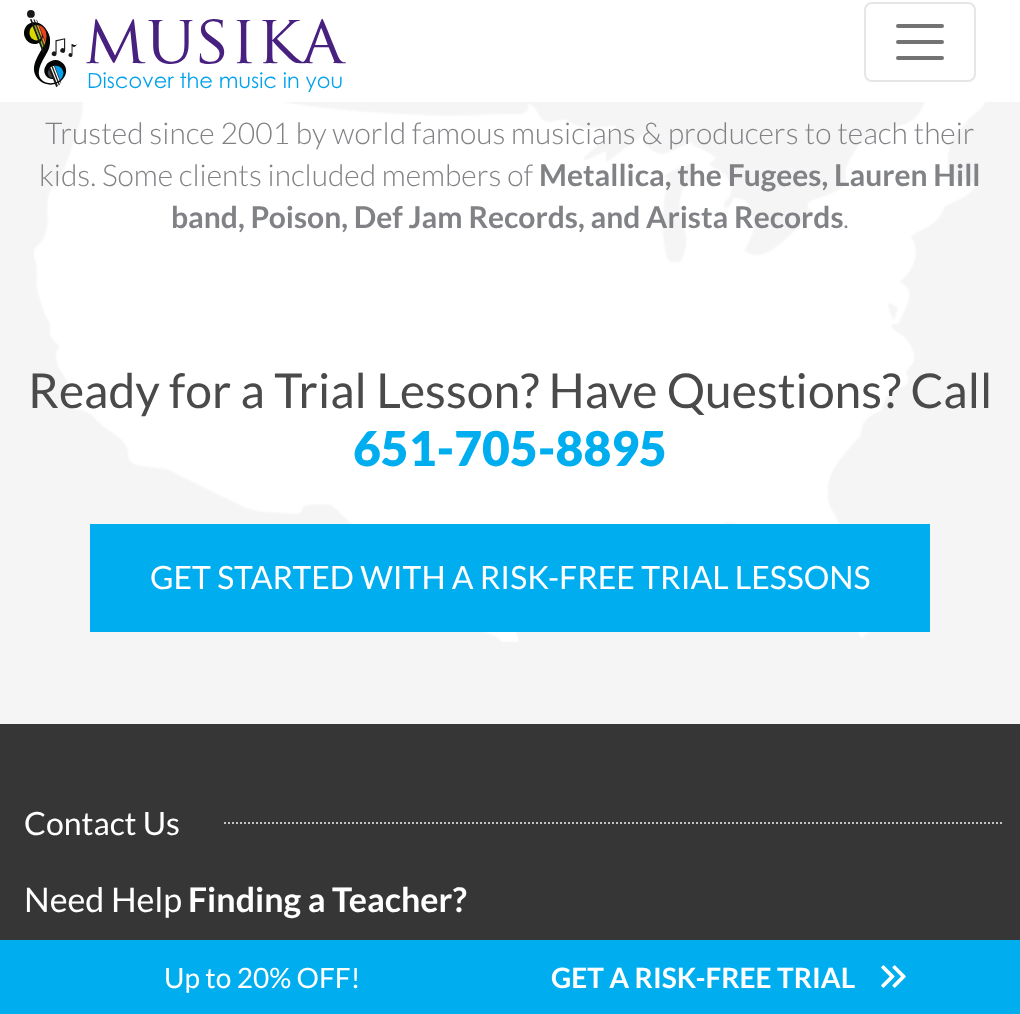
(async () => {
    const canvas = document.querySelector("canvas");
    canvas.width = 1020;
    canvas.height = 1014;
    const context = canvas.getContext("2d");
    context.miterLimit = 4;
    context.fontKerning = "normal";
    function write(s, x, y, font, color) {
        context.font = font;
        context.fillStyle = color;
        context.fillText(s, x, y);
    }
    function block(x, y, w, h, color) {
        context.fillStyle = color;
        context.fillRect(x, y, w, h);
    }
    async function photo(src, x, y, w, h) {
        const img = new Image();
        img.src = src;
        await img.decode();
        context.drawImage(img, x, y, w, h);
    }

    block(0, 0, 1020, 1014, "rgb(245, 245, 245)");
    block(0, 0, 1020, 102, "rgb(255, 255, 255)");
    await photo("media/1.png", 24, 10, 322, 82);
    context.beginPath();
    context.roundRect(865, 3, 110, 78, 7);
    context.strokeStyle = "rgb(230, 230, 230)";
    context.lineWidth = 2;
    context.stroke();
    context.beginPath();
    context.moveTo(898, 26);
    context.lineTo(942, 26);
    context.moveTo(898, 42);
    context.lineTo(942, 42);
    context.moveTo(898, 58);
    context.lineTo(942, 58);
    context.strokeStyle = "rgb(115, 115, 115)";
    context.lineWidth = 4;
    context.lineCap = "round";
    context.stroke();
    await photo("media/2.png", 34, 102, 953, 540);
    write("Trusted since 2001 by world famous musicians & producers to teach their", 45, 144, "300 30px Lato", "rgb(128, 130, 133)");
    write("kids. Some clients included members of", 39, 186, "300 30px Lato", "rgb(128, 130, 133)");
    write("Metallica, the Fugees, Lauren Hill", 539, 186, "bold 30px Lato", "rgb(128, 130, 133)");
    write("band, Poison, Def Jam Records, and Arista Records", 171, 228, "bold 30px Lato", "rgb(128, 130, 133)");
    write(".", 843, 228, "300 30px Lato", "rgb(128, 130, 133)");
    write("Ready for a Trial Lesson? Have Questions? Call", 28, 408, "48px Lato", "rgb(74, 74, 74)");
    write("651-705-8895", 353, 466, "900 48px Lato", "rgb(0, 174, 239)");
    block(90, 524, 840, 108, "rgb(0, 174, 239)");
    write("GET STARTED WITH A RISK-FREE TRIAL LESSONS", 150, 589, "32px Lato", "rgb(255, 255, 255)");
    block(0, 724, 1020, 216, "rgb(54, 54, 54)");
    write("Contact Us", 24, 835, "32px Lato", "rgb(255, 255, 255)");
    context.beginPath();
    context.moveTo(224, 823);
    context.lineTo(1002, 823);
    context.strokeStyle = "rgb(196, 196, 196)";
    context.lineWidth = 2;
    context.lineCap = "butt";
    context.setLineDash([2, 2]);
    context.stroke();
    write("Need Help", 24, 912, "34px Lato", "rgb(255, 255, 255)");
    write("Finding a Teacher?", 188, 912, "bold 34px Lato", "rgb(255, 255, 255)");
    block(0, 940, 1020, 74, "rgb(0, 174, 239)");
    write("Up to 20% OFF!", 164, 988, "28px Lato", "rgb(255, 255, 255)");
    write("GET A RISK-FREE TRIAL", 551, 988, "bold 28px Lato", "rgb(255, 255, 255)");
    await photo("media/3.png", 881, 965, 25, 23);
})();
